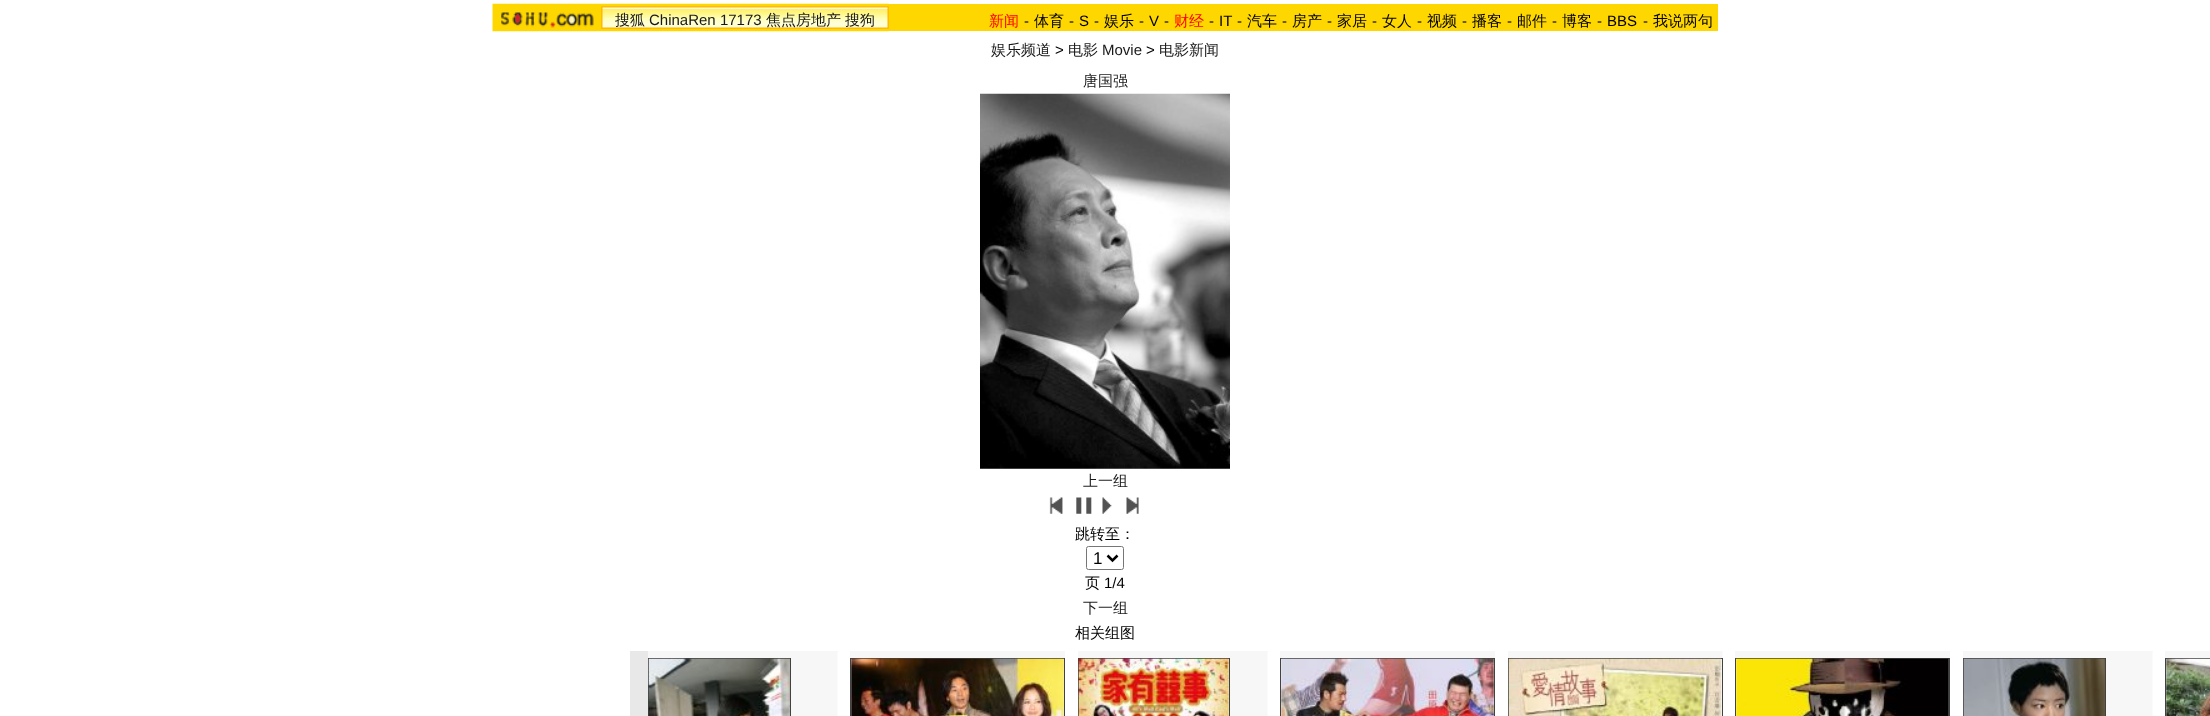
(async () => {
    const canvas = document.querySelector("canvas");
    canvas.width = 2210;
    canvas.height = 716;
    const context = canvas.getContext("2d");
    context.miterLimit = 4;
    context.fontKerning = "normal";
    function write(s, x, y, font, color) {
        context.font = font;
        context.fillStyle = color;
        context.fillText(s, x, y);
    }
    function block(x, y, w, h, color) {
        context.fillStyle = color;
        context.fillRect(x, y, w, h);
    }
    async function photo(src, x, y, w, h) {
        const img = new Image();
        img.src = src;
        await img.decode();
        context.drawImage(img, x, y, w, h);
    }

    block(0, 0, 2210, 716, "rgb(255, 255, 255)");
    block(601, 4, 1117, 27, "rgb(255, 215, 0)");
    await photo("media/1.png", 492, 3, 110, 29);
    await photo("media/2.png", 601, 3, 288, 29);
    write("搜狐", 615, 25, "500 15px WenQuanYi Zen Hei", "rgb(25, 25, 25)");
    write("ChinaRen 17173", 649, 25, "15px Liberation Sans", "rgb(25, 25, 25)");
    write("焦点房地产", 766, 25, "500 15px WenQuanYi Zen Hei", "rgb(25, 25, 25)");
    write("搜狗", 845, 25, "500 15px WenQuanYi Zen Hei", "rgb(25, 25, 25)");
    write("新闻", 989, 26, "500 15px WenQuanYi Zen Hei", "rgb(255, 0, 0)");
    write("-", 1024, 26, "15px Liberation Sans", "rgb(0, 0, 0)");
    write("体育", 1034, 26, "500 15px WenQuanYi Zen Hei", "rgb(0, 0, 0)");
    write("-", 1069, 26, "15px Liberation Sans", "rgb(0, 0, 0)");
    write("S", 1079, 26, "15px Liberation Sans", "rgb(0, 0, 0)");
    write("-", 1094, 26, "15px Liberation Sans", "rgb(0, 0, 0)");
    write("娱乐", 1104, 26, "500 15px WenQuanYi Zen Hei", "rgb(0, 0, 0)");
    write("-", 1139, 26, "15px Liberation Sans", "rgb(0, 0, 0)");
    write("V", 1149, 26, "15px Liberation Sans", "rgb(0, 0, 0)");
    write("-", 1164, 26, "15px Liberation Sans", "rgb(0, 0, 0)");
    write("财经", 1174, 26, "500 15px WenQuanYi Zen Hei", "rgb(255, 0, 0)");
    write("-", 1209, 26, "15px Liberation Sans", "rgb(0, 0, 0)");
    write("IT", 1219, 26, "15px Liberation Sans", "rgb(0, 0, 0)");
    write("-", 1237, 26, "15px Liberation Sans", "rgb(0, 0, 0)");
    write("汽车", 1247, 26, "500 15px WenQuanYi Zen Hei", "rgb(0, 0, 0)");
    write("-", 1282, 26, "15px Liberation Sans", "rgb(0, 0, 0)");
    write("房产", 1292, 26, "500 15px WenQuanYi Zen Hei", "rgb(0, 0, 0)");
    write("-", 1327, 26, "15px Liberation Sans", "rgb(0, 0, 0)");
    write("家居", 1337, 26, "500 15px WenQuanYi Zen Hei", "rgb(0, 0, 0)");
    write("-", 1372, 26, "15px Liberation Sans", "rgb(0, 0, 0)");
    write("女人", 1382, 26, "500 15px WenQuanYi Zen Hei", "rgb(0, 0, 0)");
    write("-", 1417, 26, "15px Liberation Sans", "rgb(0, 0, 0)");
    write("视频", 1427, 26, "500 15px WenQuanYi Zen Hei", "rgb(0, 0, 0)");
    write("-", 1462, 26, "15px Liberation Sans", "rgb(0, 0, 0)");
    write("播客", 1472, 26, "500 15px WenQuanYi Zen Hei", "rgb(0, 0, 0)");
    write("-", 1507, 26, "15px Liberation Sans", "rgb(0, 0, 0)");
    write("邮件", 1517, 26, "500 15px WenQuanYi Zen Hei", "rgb(0, 0, 0)");
    write("-", 1552, 26, "15px Liberation Sans", "rgb(0, 0, 0)");
    write("博客", 1562, 26, "500 15px WenQuanYi Zen Hei", "rgb(0, 0, 0)");
    write("-", 1597, 26, "15px Liberation Sans", "rgb(0, 0, 0)");
    write("BBS", 1607, 26, "15px Liberation Sans", "rgb(0, 0, 0)");
    write("-", 1643, 26, "15px Liberation Sans", "rgb(0, 0, 0)");
    write("我说两句", 1653, 26, "500 15px WenQuanYi Zen Hei", "rgb(0, 0, 0)");
    write("娱乐频道", 991, 55, "500 15px WenQuanYi Zen Hei", "rgb(25, 25, 25)");
    write(">", 1055, 55, "15px Liberation Sans", "rgb(0, 0, 0)");
    write("电影", 1068, 55, "500 15px WenQuanYi Zen Hei", "rgb(25, 25, 25)");
    write("Movie", 1102, 55, "15px Liberation Sans", "rgb(25, 25, 25)");
    write(">", 1146, 55, "15px Liberation Sans", "rgb(0, 0, 0)");
    write("电影新闻", 1159, 55, "500 15px WenQuanYi Zen Hei", "rgb(25, 25, 25)");
    write("唐国强", 1083, 86, "500 15px WenQuanYi Zen Hei", "rgb(25, 25, 25)");
    await photo("media/3.png", 980, 93, 250, 376);
    write("上一组", 1083, 486, "500 15px WenQuanYi Zen Hei", "rgb(25, 25, 25)");
    await photo("media/4.png", 1049, 497, 14, 17);
    await photo("media/5.png", 1076, 497, 16, 17);
    await photo("media/6.png", 1102, 497, 10, 17);
    await photo("media/7.png", 1126, 497, 13, 17);
    write("跳转至：", 1075, 539, "500 15px WenQuanYi Zen Hei", "rgb(0, 0, 0)");
    context.beginPath();
    context.roundRect(1086.5, 546.5, 37, 23, 2);
    context.strokeStyle = "rgb(118, 118, 118)";
    context.stroke();
    context.beginPath();
    context.moveTo(1107.5, 555.5);
    context.lineTo(1112.5, 560.5);
    context.lineTo(1117.5, 555.5);
    context.strokeStyle = "rgb(0, 0, 0)";
    context.lineWidth = 2.5;
    context.stroke();
    write("1", 1093, 564, "17px Liberation Sans", "rgb(0, 0, 0)");
    write("页", 1085, 588, "500 15px WenQuanYi Zen Hei", "rgb(0, 0, 0)");
    write("1/4", 1104, 588, "15px Liberation Sans", "rgb(0, 0, 0)");
    write("下一组", 1083, 613, "500 15px WenQuanYi Zen Hei", "rgb(25, 25, 25)");
    write("相关组图", 1075, 638, "500 15px WenQuanYi Zen Hei", "rgb(0, 0, 0)");
    block(630, 651, 18, 65, "rgb(232, 232, 232)");
    block(648, 651, 190, 65, "rgb(247, 247, 247)");
    context.strokeStyle = "rgb(66, 66, 66)";
    context.lineWidth = 1;
    context.strokeRect(648.5, 658.5, 142, 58);
    await photo("media/8.png", 648, 658, 142, 58);
    block(850, 651, 215, 65, "rgb(247, 247, 247)");
    context.strokeRect(850.5, 658.5, 214, 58);
    await photo("media/9.png", 851, 658, 213, 58);
    block(1078, 651, 190, 65, "rgb(247, 247, 247)");
    context.strokeRect(1078.5, 658.5, 151, 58);
    await photo("media/10.png", 1078, 658, 151, 58);
    block(1280, 651, 215, 65, "rgb(247, 247, 247)");
    context.strokeRect(1280.5, 658.5, 214, 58);
    await photo("media/11.png", 1281, 658, 213, 58);
    block(1508, 651, 215, 65, "rgb(247, 247, 247)");
    context.strokeRect(1508.5, 658.5, 214, 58);
    await photo("media/12.png", 1508, 658, 214, 58);
    block(1735, 651, 215, 65, "rgb(247, 247, 247)");
    context.strokeRect(1735.5, 658.5, 214, 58);
    await photo("media/13.png", 1736, 658, 213, 58);
    block(1963, 651, 190, 65, "rgb(247, 247, 247)");
    context.strokeRect(1963.5, 658.5, 142, 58);
    await photo("media/14.png", 1963, 658, 142, 58);
    block(2165, 651, 45, 65, "rgb(247, 247, 247)");
    context.strokeRect(2165.5, 658.5, 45, 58);
    await photo("media/15.png", 2166, 658, 44, 58);
    block(837, 652, 1, 64, "rgb(251, 251, 251)");
    block(1267, 652, 1, 64, "rgb(251, 251, 251)");
    block(1722, 652, 1, 6, "rgb(251, 251, 251)");
    block(2152, 652, 1, 64, "rgb(251, 251, 251)");
})();
